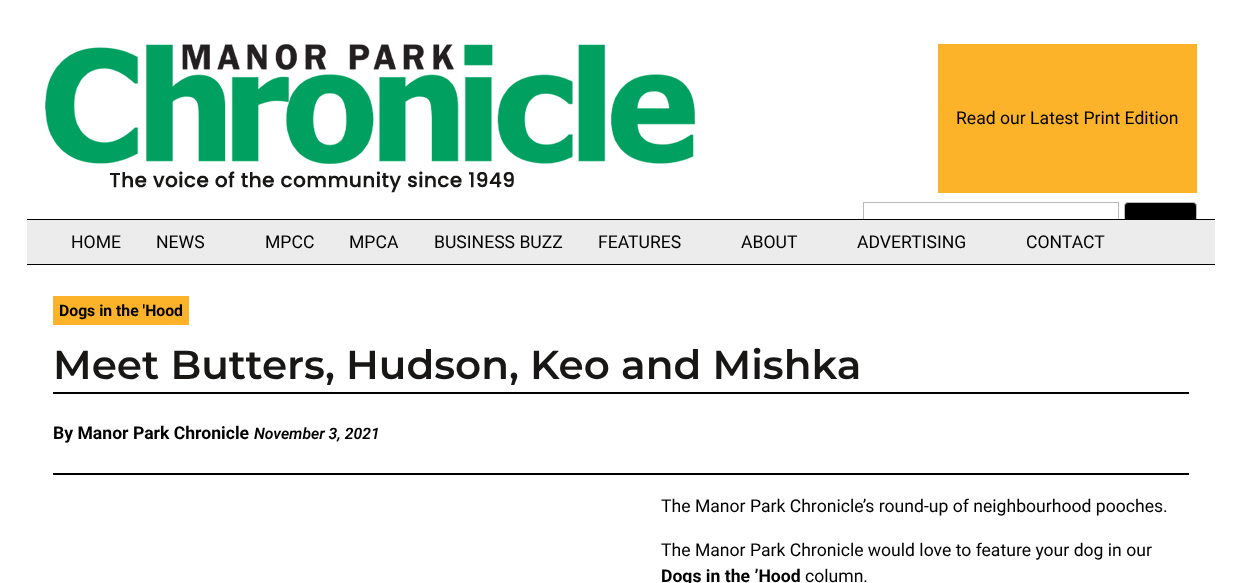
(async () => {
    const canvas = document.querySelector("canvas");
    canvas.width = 1242;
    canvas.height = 583;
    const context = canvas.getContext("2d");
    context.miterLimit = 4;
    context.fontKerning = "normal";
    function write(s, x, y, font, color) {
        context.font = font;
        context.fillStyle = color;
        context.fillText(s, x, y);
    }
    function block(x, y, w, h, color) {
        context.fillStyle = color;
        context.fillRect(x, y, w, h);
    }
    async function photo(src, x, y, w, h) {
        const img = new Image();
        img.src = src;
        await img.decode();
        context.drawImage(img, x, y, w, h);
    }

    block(0, 0, 1242, 583, "rgb(255, 255, 255)");
    await photo("media/1.png", 45, 44, 650, 149);
    block(938, 44, 259, 149, "rgb(253, 179, 41)");
    write("Read our Latest Print Edition", 956, 124, "17.6px Roboto", "rgb(0, 0, 0)");
    context.strokeStyle = "rgb(186, 186, 186)";
    context.strokeRect(863.5, 202.5, 255, 36);
    context.beginPath();
    context.roundRect(1124.5, 202.5, 72, 36, 3.5);
    context.fill();
    context.stroke();
    block(27, 220, 1188, 44, "rgb(236, 236, 236)");
    block(27, 219, 1188, 1, "rgb(0, 0, 0)");
    block(27, 264, 1188, 1, "rgb(0, 0, 0)");
    write("HOME", 71, 248, "17.6px Roboto", "rgb(0, 0, 0)");
    write("NEWS", 156, 248, "17.6px Roboto", "rgb(0, 0, 0)");
    write("MPCC", 265, 248, "17.6px Roboto", "rgb(0, 0, 0)");
    write("MPCA", 349, 248, "17.6px Roboto", "rgb(0, 0, 0)");
    write("BUSINESS BUZZ", 434, 248, "17.6px Roboto", "rgb(0, 0, 0)");
    write("FEATURES", 598, 248, "17.6px Roboto", "rgb(0, 0, 0)");
    write("ABOUT", 741, 248, "17.6px Roboto", "rgb(0, 0, 0)");
    write("ADVERTISING", 857, 248, "17.6px Roboto", "rgb(0, 0, 0)");
    write("CONTACT", 1026, 248, "17.6px Roboto", "rgb(0, 0, 0)");
    block(53, 296, 136, 29, "rgb(253, 179, 41)");
    write("Dogs in the 'Hood", 59, 316, "bold 15.75px Roboto", "rgb(0, 0, 0)");
    write("Meet Butters, Hudson, Keo and Mishka", 53, 379, "600 40.5px Montserrat", "rgb(24, 23, 22)");
    block(53, 392, 1136, 2, "rgb(0, 0, 0)");
    block(53, 473, 1136, 2, "rgb(0, 0, 0)");
    write("By Manor Park Chronicle", 53, 439, "bold 17.6px Roboto", "rgb(0, 0, 0)");
    write("November 3, 2021", 254, 439, "italic 600 15.75px Roboto", "rgb(0, 0, 0)");
    write("The Manor Park Chronicle’s round-up of neighbourhood pooches.", 661, 512, "17.6px Roboto", "rgb(0, 0, 0)");
    write("The Manor Park Chronicle would love to feature your dog in our", 661, 556, "17.6px Roboto", "rgb(0, 0, 0)");
    write("Dogs in the ’Hood", 661, 582, "bold 17.6px Roboto", "rgb(0, 0, 0)");
    write("column.", 805, 582, "17.6px Roboto", "rgb(0, 0, 0)");
})();
